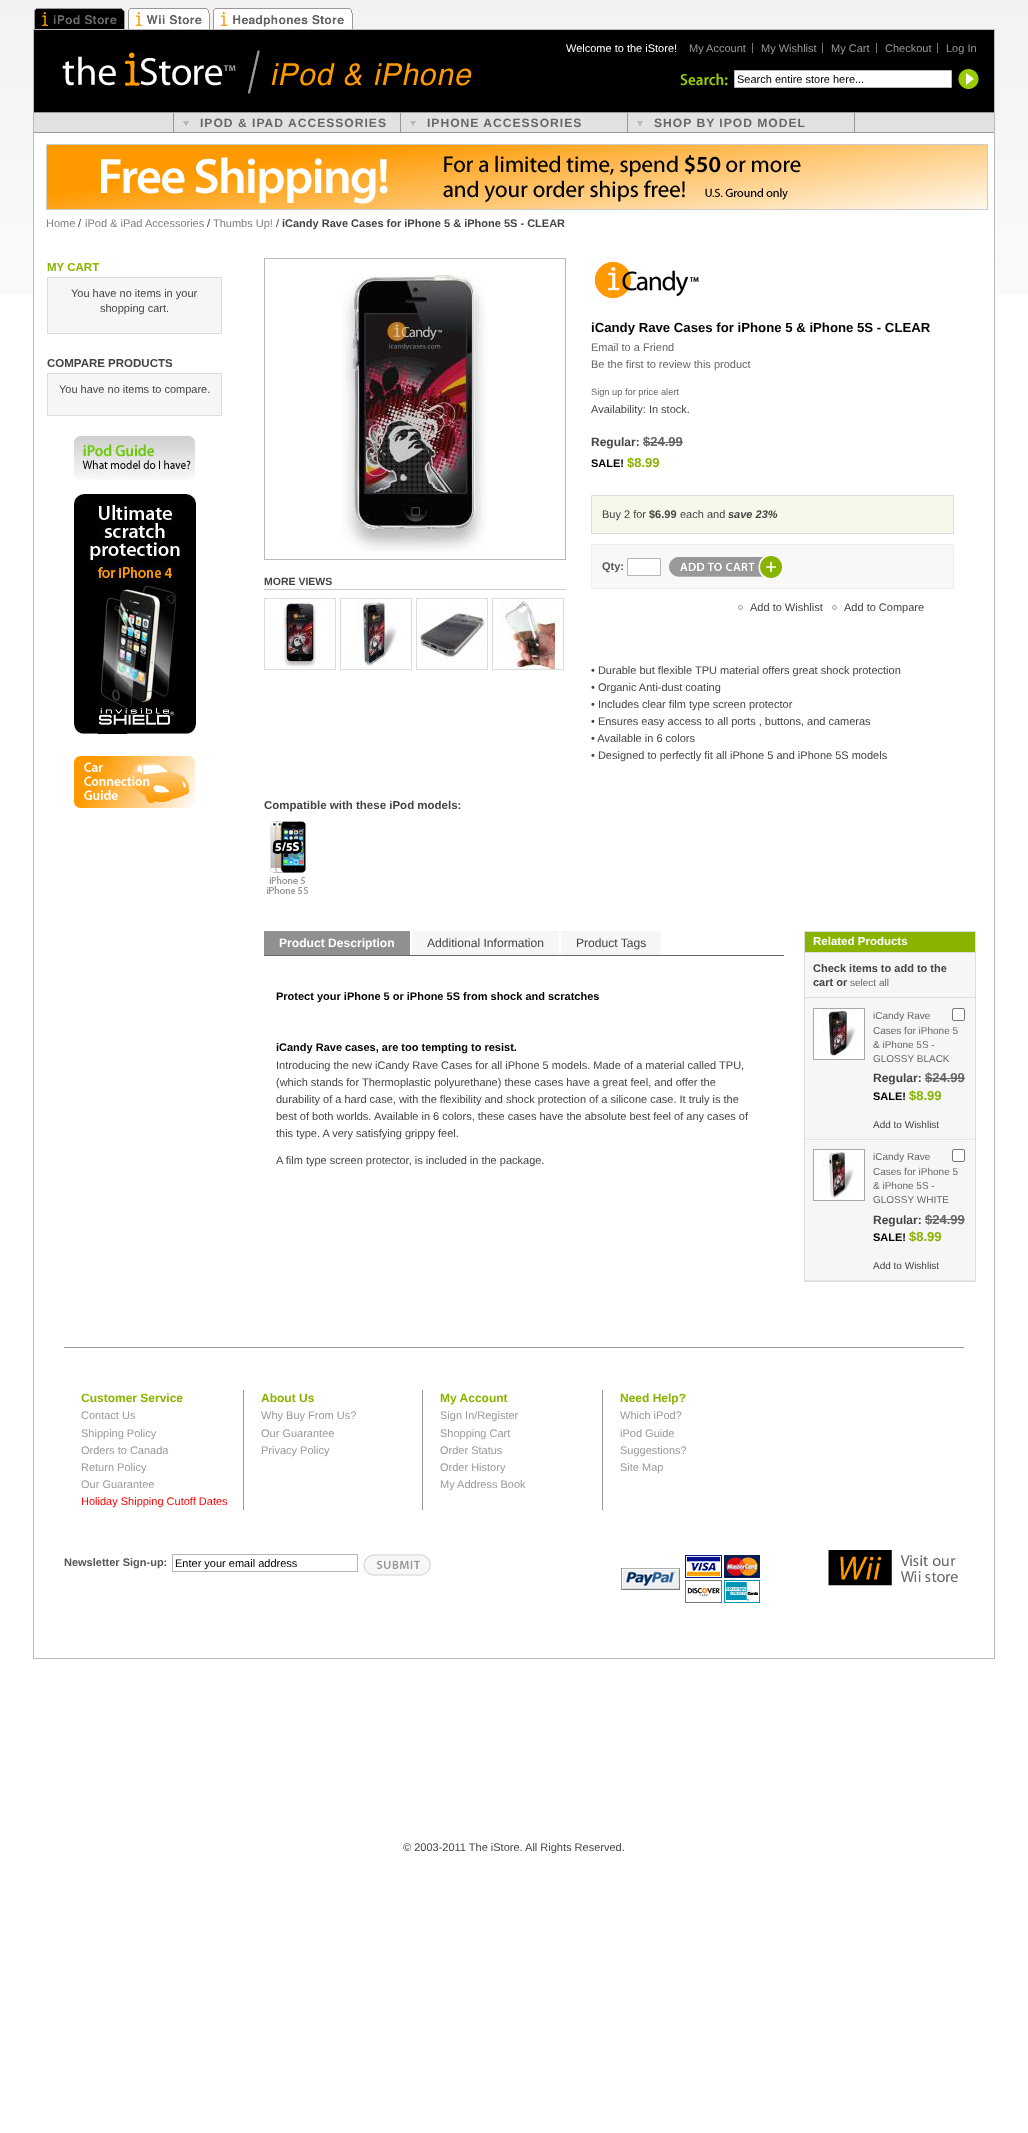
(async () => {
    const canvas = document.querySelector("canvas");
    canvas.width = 1028;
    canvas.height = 2133;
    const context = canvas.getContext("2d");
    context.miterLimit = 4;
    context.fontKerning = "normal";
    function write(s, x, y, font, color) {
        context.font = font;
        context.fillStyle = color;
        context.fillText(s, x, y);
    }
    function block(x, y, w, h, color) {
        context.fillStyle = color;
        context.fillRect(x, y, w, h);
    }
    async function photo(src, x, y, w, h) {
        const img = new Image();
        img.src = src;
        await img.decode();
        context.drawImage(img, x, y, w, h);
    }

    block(0, 0, 1028, 2133, "rgb(255, 255, 255)");
    await photo("media/1.png", 0, 0, 1028, 295);
    await photo("media/2.png", 34, 8, 91, 21);
    await photo("media/3.png", 128, 8, 82, 21);
    await photo("media/4.png", 213, 8, 140, 21);
    block(34, 133, 960, 162, "rgb(255, 255, 255)");
    context.strokeStyle = "rgb(187, 187, 187)";
    context.strokeRect(33.5, 29.5, 961, 1629);
    block(34, 113, 960, 19, "rgb(226, 226, 226)");
    block(34, 132, 960, 1, "rgb(153, 153, 153)");
    block(34, 30, 960, 82, "rgb(0, 0, 0)");
    await photo("media/5.png", 62, 50, 410, 44);
    write("Welcome to the iStore!", 566, 52, "11px Liberation Sans", "rgb(255, 255, 255)");
    write("My Account", 689, 52, "11px Liberation Sans", "rgb(153, 153, 153)");
    block(752, 43, 1, 10, "rgb(119, 119, 119)");
    write("My Wishlist", 761, 52, "11px Liberation Sans", "rgb(153, 153, 153)");
    block(822, 43, 1, 10, "rgb(119, 119, 119)");
    write("My Cart", 831, 52, "11px Liberation Sans", "rgb(153, 153, 153)");
    block(876, 43, 1, 10, "rgb(119, 119, 119)");
    write("Checkout", 885, 52, "11px Liberation Sans", "rgb(153, 153, 153)");
    block(937, 43, 1, 10, "rgb(119, 119, 119)");
    write("Log In", 946, 52, "11px Liberation Sans", "rgb(153, 153, 153)");
    await photo("media/6.png", 680, 73, 48, 13);
    context.fillStyle = "rgb(255, 255, 255)";
    context.beginPath();
    context.rect(734.5, 70.5, 217, 17);
    context.fill();
    context.strokeStyle = "rgb(182, 182, 182)";
    context.stroke();
    write("Search entire store here...", 737, 83, "11px Liberation Sans", "rgb(0, 0, 0)");
    await photo("media/7.png", 958, 69, 21, 20);
    block(34, 112, 960, 1, "rgb(153, 153, 153)");
    block(173, 113, 682, 19, "rgb(153, 153, 153)");
    block(174, 113, 226, 19, "rgb(226, 226, 226)");
    await photo("media/8.png", 182, 121, 8, 5);
    context.letterSpacing = "1px";
    write("IPOD & IPAD ACCESSORIES", 200, 127, "bold 12.1px Liberation Sans", "rgb(102, 102, 102)");
    block(401, 113, 226, 19, "rgb(226, 226, 226)");
    await photo("media/8.png", 409, 121, 8, 5);
    write("IPHONE ACCESSORIES", 427, 127, "bold 12.1px Liberation Sans", "rgb(102, 102, 102)");
    block(628, 113, 226, 19, "rgb(226, 226, 226)");
    await photo("media/8.png", 636, 121, 8, 5);
    write("SHOP BY IPOD MODEL", 654, 127, "bold 12.1px Liberation Sans", "rgb(102, 102, 102)");
    await photo("media/9.png", 46, 144, 942, 66);
    context.letterSpacing = "0px";
    write("Home", 46, 227, "11px Liberation Sans", "rgb(127, 127, 127)");
    write("/", 78, 227, "11px Liberation Sans", "rgb(68, 68, 68)");
    write("iPod & iPad Accessories", 85, 227, "11px Liberation Sans", "rgb(127, 127, 127)");
    write("/", 207, 227, "11px Liberation Sans", "rgb(68, 68, 68)");
    write("Thumbs Up!", 213, 227, "11px Liberation Sans", "rgb(127, 127, 127)");
    write("/", 276, 227, "11px Liberation Sans", "rgb(68, 68, 68)");
    write("iCandy Rave Cases for iPhone 5 & iPhone 5S - CLEAR", 282, 227, "bold 11px Liberation Sans", "rgb(68, 68, 68)");
    write("MY CART", 47, 271, "bold 11.5px Liberation Sans", "rgb(136, 180, 0)");
    context.fillStyle = "rgb(246, 246, 246)";
    context.beginPath();
    context.rect(47.5, 277.5, 174, 56);
    context.fill();
    context.strokeStyle = "rgb(221, 221, 221)";
    context.stroke();
    write("You have no items in your", 71, 297, "11px Liberation Sans", "rgb(68, 68, 68)");
    write("shopping cart.", 100, 312, "11px Liberation Sans", "rgb(68, 68, 68)");
    write("COMPARE PRODUCTS", 47, 367, "bold 11.5px Liberation Sans", "rgb(68, 68, 68)");
    context.fillStyle = "rgb(246, 246, 246)";
    context.beginPath();
    context.rect(47.5, 373.5, 174, 42);
    context.fill();
    context.stroke();
    write("You have no items to compare.", 59, 393, "11px Liberation Sans", "rgb(68, 68, 68)");
    await photo("media/10.png", 74, 436, 121, 44);
    await photo("media/11.png", 74, 494, 122, 240);
    await photo("media/12.png", 74, 756, 121, 52);
    context.strokeStyle = "rgb(187, 187, 187)";
    context.strokeRect(264.5, 258.5, 301, 301);
    await photo("media/13.png", 342, 275, 145, 277);
    block(264, 589, 302, 1, "rgb(204, 204, 204)");
    write("MORE VIEWS", 264, 585, "bold 10.5px Liberation Sans", "rgb(68, 68, 68)");
    context.strokeStyle = "rgb(221, 221, 221)";
    context.strokeRect(264.5, 598.5, 71, 71);
    await photo("media/14.png", 281, 599, 40, 69);
    context.strokeRect(340.5, 598.5, 71, 71);
    await photo("media/15.png", 357, 599, 40, 70);
    context.strokeRect(416.5, 598.5, 71, 71);
    await photo("media/16.png", 417, 607, 69, 55);
    context.strokeRect(492.5, 598.5, 71, 71);
    await photo("media/17.png", 501, 599, 56, 70);
    await photo("media/18.png", 595, 262, 104, 36);
    write("iCandy Rave Cases for iPhone 5 & iPhone 5S - CLEAR", 591, 332, "bold 13.2px Liberation Sans", "rgb(0, 0, 0)");
    write("Email to a Friend", 591, 351, "11px Liberation Sans", "rgb(102, 102, 102)");
    write("Be the first to review this product", 591, 368, "11px Liberation Sans", "rgb(102, 102, 102)");
    write("Sign up for price alert", 591, 395, "9.25px Liberation Sans", "rgb(102, 102, 102)");
    write("Availability: In stock.", 591, 413, "11px Liberation Sans", "rgb(68, 68, 68)");
    write("Regular:", 591, 446, "bold 12px Liberation Sans", "rgb(68, 68, 68)");
    write("$24.99", 643, 446, "bold 13px Liberation Sans", "rgb(102, 102, 102)");
    block(643, 442, 40, 1, "rgb(102, 102, 102)");
    write("SALE!", 591, 467, "bold 11px Liberation Sans", "rgb(0, 0, 0)");
    write("$8.99", 627, 467, "bold 13px Liberation Sans", "rgb(136, 180, 0)");
    context.fillStyle = "rgb(244, 249, 234)";
    context.beginPath();
    context.rect(591.5, 495.5, 362, 38);
    context.fill();
    context.stroke();
    write("Buy 2 for", 602, 518, "11px Liberation Sans", "rgb(68, 68, 68)");
    write("$6.99", 649, 518, "bold 11px Liberation Sans", "rgb(68, 68, 68)");
    write("each and", 680, 518, "11px Liberation Sans", "rgb(68, 68, 68)");
    write("save 23%", 728, 518, "italic bold 11px Liberation Sans", "rgb(68, 68, 68)");
    context.fillStyle = "rgb(248, 248, 248)";
    context.beginPath();
    context.rect(591.5, 544.5, 362, 44);
    context.fill();
    context.strokeStyle = "rgb(238, 238, 238)";
    context.stroke();
    write("Qty:", 602, 570, "bold 11px Liberation Sans", "rgb(85, 85, 85)");
    context.fillStyle = "rgb(255, 255, 255)";
    context.beginPath();
    context.rect(627.5, 558.5, 33, 17);
    context.fill();
    context.strokeStyle = "rgb(182, 182, 182)";
    context.stroke();
    await photo("media/19.png", 669, 556, 113, 22);
    await photo("media/20.png", 738, 605, 5, 5);
    write("Add to Wishlist", 750, 611, "11px Liberation Sans", "rgb(68, 68, 68)");
    await photo("media/20.png", 832, 605, 5, 5);
    write("Add to Compare", 844, 611, "11px Liberation Sans", "rgb(68, 68, 68)");
    write("• Durable but flexible TPU material offers great shock protection", 591, 674, "11px Liberation Sans", "rgb(68, 68, 68)");
    write("• Organic Anti-dust coating", 591, 691, "11px Liberation Sans", "rgb(68, 68, 68)");
    write("• Includes clear film type screen protector", 591, 708, "11px Liberation Sans", "rgb(68, 68, 68)");
    write("• Ensures easy access to all ports , buttons, and cameras", 591, 725, "11px Liberation Sans", "rgb(68, 68, 68)");
    write("• Available in 6 colors", 591, 742, "11px Liberation Sans", "rgb(68, 68, 68)");
    write("• Designed to perfectly fit all iPhone 5 and iPhone 5S models", 591, 759, "11px Liberation Sans", "rgb(68, 68, 68)");
    write("Compatible with these iPod models:", 264, 809, "bold 11.5px Liberation Sans", "rgb(68, 68, 68)");
    await photo("media/21.png", 267, 821, 41, 73);
    block(264, 955, 520, 1, "rgb(102, 102, 102)");
    block(264, 931, 146, 24, "rgb(144, 144, 144)");
    write("Product Description", 279, 947, "bold 12.1px Liberation Sans", "rgb(255, 255, 255)");
    block(412, 931, 147, 24, "rgb(246, 246, 246)");
    write("Additional Information", 427, 947, "12.1px Liberation Sans", "rgb(68, 68, 68)");
    block(561, 931, 100, 24, "rgb(246, 246, 246)");
    write("Product Tags", 576, 947, "12.1px Liberation Sans", "rgb(68, 68, 68)");
    write("Protect your iPhone 5 or iPhone 5S from shock and scratches", 276, 1000, "bold 11px Liberation Sans", "rgb(0, 0, 0)");
    write("iCandy Rave cases, are too tempting to resist.", 276, 1051, "bold 11px Liberation Sans", "rgb(0, 0, 0)");
    write("Introducing the new iCandy Rave Cases for all iPhone 5 models. Made of a material called TPU,", 276, 1069, "11px Liberation Sans", "rgb(68, 68, 68)");
    write("(which stands for Thermoplastic polyurethane) these cases have a great feel, and offer the", 276, 1086, "11px Liberation Sans", "rgb(68, 68, 68)");
    write("durability of a hard case, with the flexibility and shock protection of a silicone case. It truly is the", 276, 1103, "11px Liberation Sans", "rgb(68, 68, 68)");
    write("best of both worlds.", 276, 1120, "11px Liberation Sans", "rgb(68, 68, 68)");
    write("Available in 6 colors, these cases have the absolute best feel of any cases of", 374, 1120, "11px Liberation Sans", "rgb(68, 68, 68)");
    write("this type. A very satisfying grippy feel.", 276, 1137, "11px Liberation Sans", "rgb(68, 68, 68)");
    write("A film type screen protector, is included in the package.", 276, 1164, "11px Liberation Sans", "rgb(68, 68, 68)");
    block(805, 953, 170, 327, "rgb(246, 246, 246)");
    context.strokeStyle = "rgb(221, 221, 221)";
    context.strokeRect(804.5, 931.5, 171, 350);
    block(805, 932, 170, 20, "rgb(136, 180, 0)");
    block(805, 952, 170, 1, "rgb(221, 221, 221)");
    write("Related Products", 813, 945, "bold 11.5px Liberation Sans", "rgb(255, 255, 255)");
    block(805, 997, 170, 1, "rgb(221, 221, 221)");
    write("Check items to add to the", 813, 972, "bold 11px Liberation Sans", "rgb(68, 68, 68)");
    write("cart or", 813, 986, "bold 11px Liberation Sans", "rgb(68, 68, 68)");
    write("select all", 850, 986, "10px Liberation Sans", "rgb(102, 102, 102)");
    block(805, 1139, 170, 1, "rgb(230, 230, 230)");
    context.strokeStyle = "rgb(169, 169, 169)";
    context.strokeRect(813.5, 1008.5, 51, 51);
    await photo("media/22.png", 814, 1009, 50, 50);
    context.fillStyle = "rgb(255, 255, 255)";
    context.beginPath();
    context.roundRect(952.5, 1008.5, 12, 12, 1.5);
    context.fill();
    context.strokeStyle = "rgb(118, 118, 118)";
    context.stroke();
    write("iCandy Rave", 873, 1019, "10px Liberation Sans", "rgb(102, 102, 102)");
    write("Cases for iPhone 5", 873, 1034, "10px Liberation Sans", "rgb(102, 102, 102)");
    write("& iPhone 5S -", 873, 1048, "10px Liberation Sans", "rgb(102, 102, 102)");
    write("GLOSSY BLACK", 873, 1062, "10px Liberation Sans", "rgb(102, 102, 102)");
    write("Regular:", 873, 1082, "bold 12px Liberation Sans", "rgb(68, 68, 68)");
    write("$24.99", 925, 1082, "bold 13px Liberation Sans", "rgb(102, 102, 102)");
    block(925, 1078, 40, 1, "rgb(102, 102, 102)");
    write("SALE!", 873, 1100, "bold 11px Liberation Sans", "rgb(0, 0, 0)");
    write("$8.99", 909, 1100, "bold 13px Liberation Sans", "rgb(136, 180, 0)");
    write("Add to Wishlist", 873, 1128, "10px Liberation Sans", "rgb(68, 68, 68)");
    block(805, 1140, 170, 1, "rgb(255, 255, 255)");
    block(805, 1280, 170, 1, "rgb(230, 230, 230)");
    context.strokeStyle = "rgb(169, 169, 169)";
    context.strokeRect(813.5, 1149.5, 51, 51);
    await photo("media/23.png", 814, 1150, 50, 50);
    context.fillStyle = "rgb(255, 255, 255)";
    context.beginPath();
    context.roundRect(952.5, 1149.5, 12, 12, 1.5);
    context.fill();
    context.strokeStyle = "rgb(118, 118, 118)";
    context.stroke();
    write("iCandy Rave", 873, 1160, "10px Liberation Sans", "rgb(102, 102, 102)");
    write("Cases for iPhone 5", 873, 1175, "10px Liberation Sans", "rgb(102, 102, 102)");
    write("& iPhone 5S -", 873, 1189, "10px Liberation Sans", "rgb(102, 102, 102)");
    write("GLOSSY WHITE", 873, 1203, "10px Liberation Sans", "rgb(102, 102, 102)");
    write("Regular:", 873, 1224, "bold 12px Liberation Sans", "rgb(68, 68, 68)");
    write("$24.99", 925, 1224, "bold 13px Liberation Sans", "rgb(102, 102, 102)");
    block(925, 1219, 40, 1, "rgb(102, 102, 102)");
    write("SALE!", 873, 1241, "bold 11px Liberation Sans", "rgb(0, 0, 0)");
    write("$8.99", 909, 1241, "bold 13px Liberation Sans", "rgb(136, 180, 0)");
    write("Add to Wishlist", 873, 1269, "10px Liberation Sans", "rgb(68, 68, 68)");
    block(64, 1347, 900, 1, "rgb(153, 153, 153)");
    block(243, 1390, 1, 120, "rgb(153, 153, 153)");
    write("Customer Service", 81, 1402, "bold 12px Liberation Sans", "rgb(136, 180, 0)");
    write("Contact Us", 81, 1419, "11px Liberation Sans", "rgb(153, 153, 153)");
    write("Shipping Policy", 81, 1437, "11px Liberation Sans", "rgb(153, 153, 153)");
    write("Orders to Canada", 81, 1454, "11px Liberation Sans", "rgb(153, 153, 153)");
    write("Return Policy", 81, 1471, "11px Liberation Sans", "rgb(153, 153, 153)");
    write("Our Guarantee", 81, 1488, "11px Liberation Sans", "rgb(153, 153, 153)");
    write("Holiday Shipping Cutoff Dates", 81, 1505, "11px Liberation Sans", "rgb(255, 0, 0)");
    block(422, 1390, 1, 120, "rgb(153, 153, 153)");
    write("About Us", 261, 1402, "bold 12px Liberation Sans", "rgb(136, 180, 0)");
    write("Why Buy From Us?", 261, 1419, "11px Liberation Sans", "rgb(153, 153, 153)");
    write("Our Guarantee", 261, 1437, "11px Liberation Sans", "rgb(153, 153, 153)");
    write("Privacy Policy", 261, 1454, "11px Liberation Sans", "rgb(153, 153, 153)");
    block(602, 1390, 1, 120, "rgb(153, 153, 153)");
    write("My Account", 440, 1402, "bold 12px Liberation Sans", "rgb(136, 180, 0)");
    write("Sign In/Register", 440, 1419, "11px Liberation Sans", "rgb(153, 153, 153)");
    write("Shopping Cart", 440, 1437, "11px Liberation Sans", "rgb(153, 153, 153)");
    write("Order Status", 440, 1454, "11px Liberation Sans", "rgb(153, 153, 153)");
    write("Order History", 440, 1471, "11px Liberation Sans", "rgb(153, 153, 153)");
    write("My Address Book", 440, 1488, "11px Liberation Sans", "rgb(153, 153, 153)");
    write("Need Help?", 620, 1402, "bold 12px Liberation Sans", "rgb(136, 180, 0)");
    write("Which iPod?", 620, 1419, "11px Liberation Sans", "rgb(153, 153, 153)");
    write("iPod Guide", 620, 1437, "11px Liberation Sans", "rgb(153, 153, 153)");
    write("Suggestions?", 620, 1454, "11px Liberation Sans", "rgb(153, 153, 153)");
    write("Site Map", 620, 1471, "11px Liberation Sans", "rgb(153, 153, 153)");
    write("Newsletter Sign-up:", 64, 1566, "bold 11px Liberation Sans", "rgb(85, 85, 85)");
    context.strokeStyle = "rgb(182, 182, 182)";
    context.strokeRect(172.5, 1554.5, 185, 17);
    write("Enter your email address", 175, 1567, "11px Liberation Sans", "rgb(0, 0, 0)");
    await photo("media/24.png", 363, 1554, 68, 22);
    await photo("media/25.png", 621, 1555, 139, 48);
    await photo("media/26.png", 828, 1550, 130, 36);
    write("© 2003-2011 The iStore. All Rights Reserved.", 403, 1851, "11px Liberation Sans", "rgb(68, 68, 68)");
})();
